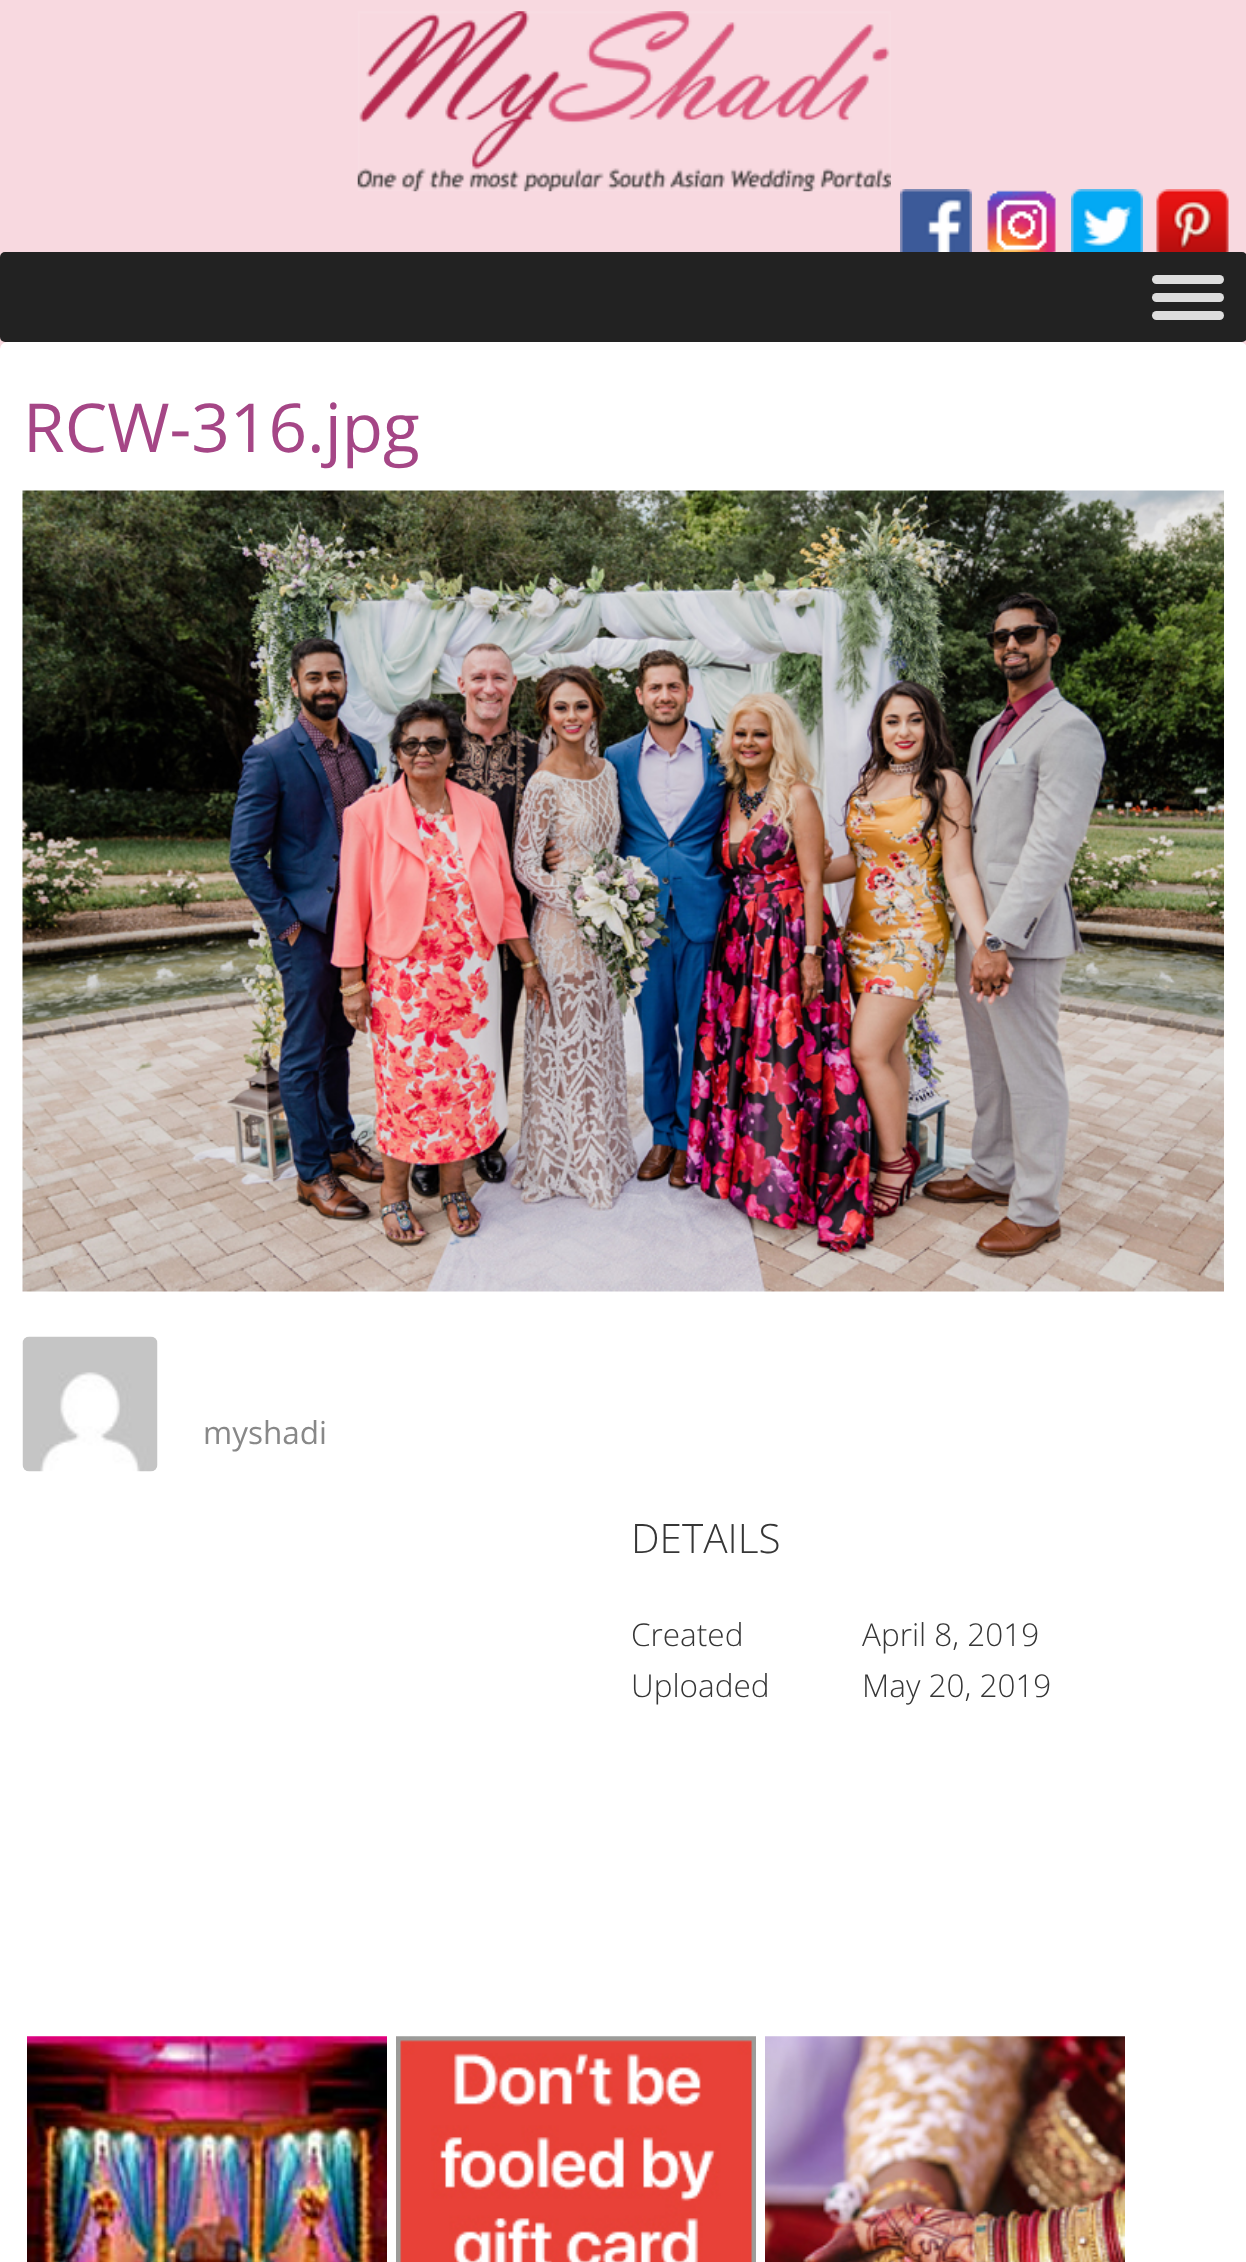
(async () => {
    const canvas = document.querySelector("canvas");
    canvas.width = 1246;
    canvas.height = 2262;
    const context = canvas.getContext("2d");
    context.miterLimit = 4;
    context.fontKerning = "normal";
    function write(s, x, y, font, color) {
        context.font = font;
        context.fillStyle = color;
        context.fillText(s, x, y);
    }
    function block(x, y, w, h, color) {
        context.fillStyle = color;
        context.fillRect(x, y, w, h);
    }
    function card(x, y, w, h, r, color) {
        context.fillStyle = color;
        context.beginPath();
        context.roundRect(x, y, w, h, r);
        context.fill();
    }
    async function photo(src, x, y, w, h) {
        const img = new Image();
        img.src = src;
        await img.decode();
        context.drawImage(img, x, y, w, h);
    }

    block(0, 0, 1246, 2262, "rgb(248, 217, 224)");
    await photo("media/1.png", 357, 11, 534, 181);
    await photo("media/2.png", 900, 189, 72, 63);
    await photo("media/3.png", 987, 190, 69, 62);
    await photo("media/4.png", 1071, 189, 72, 63);
    await photo("media/5.png", 1156, 189, 73, 63);
    card(0, 252, 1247, 90, 5, "rgb(34, 34, 34)");
    card(1152, 275, 72, 9, 4.5, "rgb(221, 221, 221)");
    card(1152, 293, 72, 9, 4.5, "rgb(221, 221, 221)");
    card(1152, 311, 72, 9, 4.5, "rgb(221, 221, 221)");
    card(0, 342, 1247, 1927, 7, "rgb(255, 255, 255)");
    write("RCW-316.jpg", 23, 452, "67.5px Open Sans", "rgb(165, 70, 134)");
    await photo("media/6.png", 22, 490, 1202, 802);
    await photo("media/7.png", 22, 1336, 136, 136);
    write("myshadi", 203, 1444, "31.5px Open Sans", "rgb(136, 136, 136)");
    write("DETAILS", 631, 1553, "300 40.5px Open Sans", "rgb(54, 54, 54)");
    write("Created", 631, 1646, "300 31.5px Open Sans", "rgb(54, 54, 54)");
    write("April 8, 2019", 862, 1646, "300 31.5px Open Sans", "rgb(54, 54, 54)");
    write("Uploaded", 631, 1697, "300 31.5px Open Sans", "rgb(54, 54, 54)");
    write("May 20, 2019", 862, 1697, "300 31.5px Open Sans", "rgb(54, 54, 54)");
    await photo("media/8.png", 27, 2036, 360, 226);
    await photo("media/9.png", 396, 2036, 360, 226);
    await photo("media/10.png", 765, 2036, 360, 226);
})();
